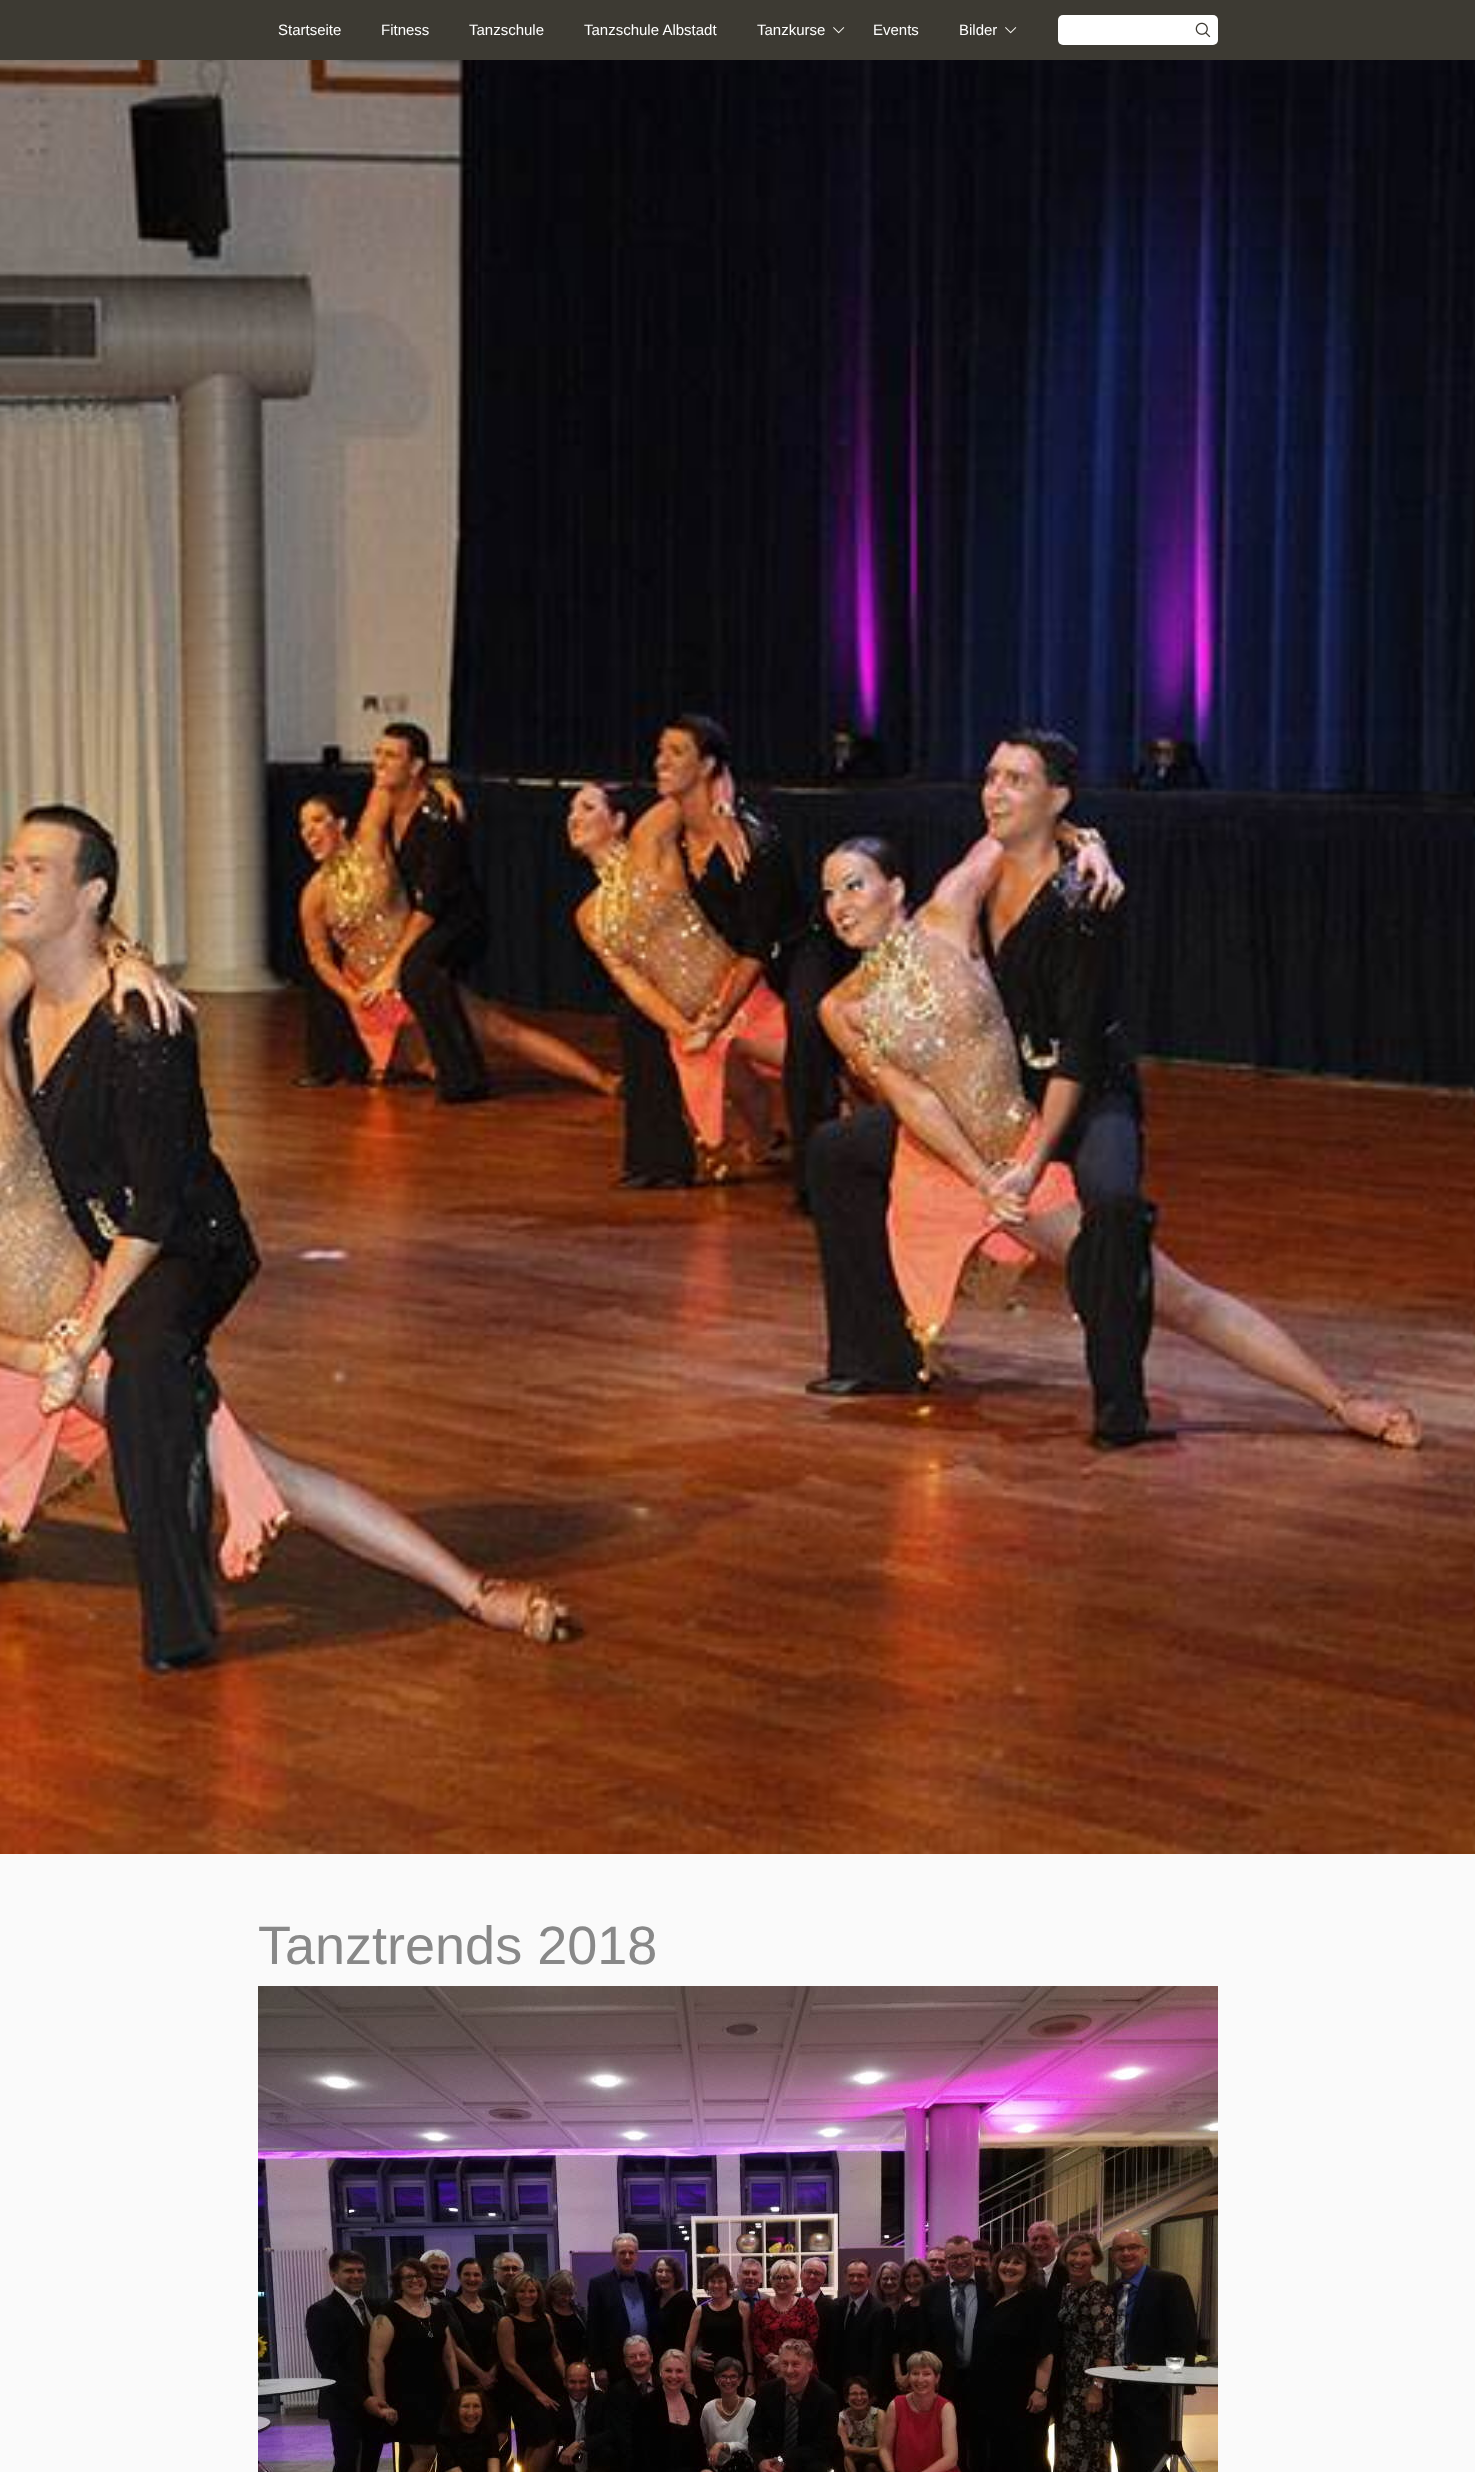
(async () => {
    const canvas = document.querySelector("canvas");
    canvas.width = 1475;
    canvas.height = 2472;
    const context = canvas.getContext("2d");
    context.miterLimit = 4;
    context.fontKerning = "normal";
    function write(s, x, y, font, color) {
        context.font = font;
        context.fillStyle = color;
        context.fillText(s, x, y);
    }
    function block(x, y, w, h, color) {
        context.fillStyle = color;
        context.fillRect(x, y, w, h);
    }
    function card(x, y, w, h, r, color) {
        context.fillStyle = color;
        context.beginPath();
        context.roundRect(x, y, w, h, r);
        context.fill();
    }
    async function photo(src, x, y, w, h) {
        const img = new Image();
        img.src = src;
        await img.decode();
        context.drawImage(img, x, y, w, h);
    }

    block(0, 0, 1475, 2472, "rgb(250, 250, 250)");
    block(0, 0, 1475, 60, "rgb(61, 58, 51)");
    write("Startseite", 278, 35, "15px Liberation Sans", "rgb(255, 255, 255)");
    write("Fitness", 381, 35, "15px Liberation Sans", "rgb(255, 255, 255)");
    write("Tanzschule", 469, 35, "15px Liberation Sans", "rgb(255, 255, 255)");
    write("Tanzschule Albstadt", 584, 35, "15px Liberation Sans", "rgb(255, 255, 255)");
    await photo("media/1.png", 833, 27, 12, 7);
    write("Tanzkurse", 757, 35, "15px Liberation Sans", "rgb(255, 255, 255)");
    write("Events", 873, 35, "15px Liberation Sans", "rgb(255, 255, 255)");
    await photo("media/1.png", 1005, 27, 12, 7);
    write("Bilder", 959, 35, "15px Liberation Sans", "rgb(255, 255, 255)");
    card(1058, 15, 160, 30, 5, "rgb(255, 255, 255)");
    await photo("media/2.png", 1195, 22, 16, 16);
    await photo("media/3.png", 0, 60, 1475, 1794);
    write("Tanztrends 2018", 258, 1964, "54px Liberation Sans", "rgb(136, 136, 136)");
    await photo("media/4.png", 258, 1986, 960, 486);
})();
